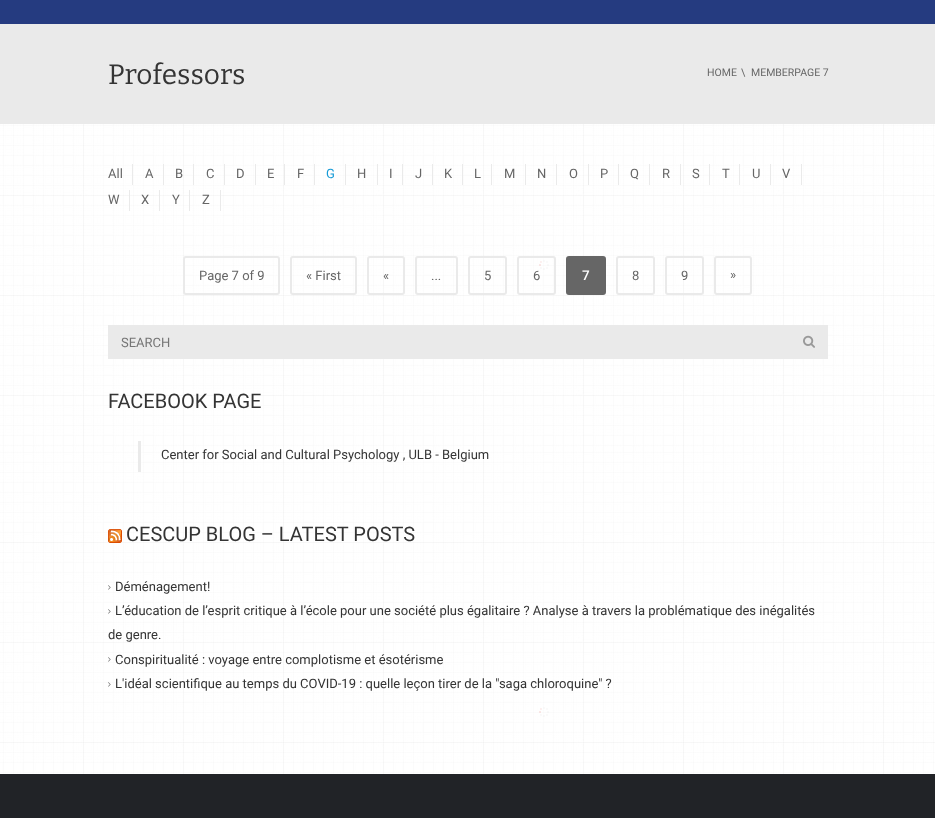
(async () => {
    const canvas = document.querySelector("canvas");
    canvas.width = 935;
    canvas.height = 818;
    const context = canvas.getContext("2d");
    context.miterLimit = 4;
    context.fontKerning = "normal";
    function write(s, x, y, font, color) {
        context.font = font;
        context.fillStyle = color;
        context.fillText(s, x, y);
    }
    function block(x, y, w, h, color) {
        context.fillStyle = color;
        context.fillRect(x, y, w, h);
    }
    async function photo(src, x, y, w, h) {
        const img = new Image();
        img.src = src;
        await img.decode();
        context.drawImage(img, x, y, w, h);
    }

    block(0, 0, 935, 818, "rgb(255, 255, 255)");
    await photo("media/1.png", 0, 124, 935, 650);
    block(0, 0, 935, 24, "rgb(37, 59, 128)");
    block(0, 24, 935, 100, "rgb(234, 234, 234)");
    write("Professors", 108, 84, "100 28px Bitter", "rgb(52, 52, 52)");
    write("HOME", 707, 76, "10.5px Roboto", "rgb(102, 102, 102)");
    write("\\", 741, 76, "10.5px Roboto", "rgb(102, 102, 102)");
    write("MEMBERPAGE 7", 751, 76, "10.5px Roboto", "rgb(102, 102, 102)");
    block(132, 164, 1, 21, "rgb(234, 234, 234)");
    write("All", 108, 178, "13px Roboto", "rgb(102, 102, 102)");
    block(163, 164, 1, 21, "rgb(234, 234, 234)");
    write("A", 145, 178, "13px Roboto", "rgb(102, 102, 102)");
    block(193, 164, 1, 21, "rgb(234, 234, 234)");
    write("B", 175, 178, "13px Roboto", "rgb(102, 102, 102)");
    block(224, 164, 1, 21, "rgb(234, 234, 234)");
    write("C", 206, 178, "13px Roboto", "rgb(102, 102, 102)");
    block(255, 164, 1, 21, "rgb(234, 234, 234)");
    write("D", 236, 178, "13px Roboto", "rgb(102, 102, 102)");
    block(284, 164, 1, 21, "rgb(234, 234, 234)");
    write("E", 267, 178, "13px Roboto", "rgb(102, 102, 102)");
    block(314, 164, 1, 21, "rgb(234, 234, 234)");
    write("F", 297, 178, "13px Roboto", "rgb(102, 102, 102)");
    block(345, 164, 1, 21, "rgb(234, 234, 234)");
    write("G", 326, 178, "13px Roboto", "rgb(23, 155, 215)");
    block(377, 164, 1, 21, "rgb(234, 234, 234)");
    write("H", 357, 178, "13px Roboto", "rgb(102, 102, 102)");
    block(402, 164, 1, 21, "rgb(234, 234, 234)");
    write("I", 389, 178, "13px Roboto", "rgb(102, 102, 102)");
    block(432, 164, 1, 21, "rgb(234, 234, 234)");
    write("J", 415, 178, "13px Roboto", "rgb(102, 102, 102)");
    block(462, 164, 1, 21, "rgb(234, 234, 234)");
    write("K", 444, 178, "13px Roboto", "rgb(102, 102, 102)");
    block(491, 164, 1, 21, "rgb(234, 234, 234)");
    write("L", 474, 178, "13px Roboto", "rgb(102, 102, 102)");
    block(525, 164, 1, 21, "rgb(234, 234, 234)");
    write("M", 504, 178, "13px Roboto", "rgb(102, 102, 102)");
    block(556, 164, 1, 21, "rgb(234, 234, 234)");
    write("N", 537, 178, "13px Roboto", "rgb(102, 102, 102)");
    block(588, 164, 1, 21, "rgb(234, 234, 234)");
    write("O", 569, 178, "13px Roboto", "rgb(102, 102, 102)");
    block(618, 164, 1, 21, "rgb(234, 234, 234)");
    write("P", 600, 178, "13px Roboto", "rgb(102, 102, 102)");
    block(649, 164, 1, 21, "rgb(234, 234, 234)");
    write("Q", 630, 178, "13px Roboto", "rgb(102, 102, 102)");
    block(680, 164, 1, 21, "rgb(234, 234, 234)");
    write("R", 662, 178, "13px Roboto", "rgb(102, 102, 102)");
    block(709, 164, 1, 21, "rgb(234, 234, 234)");
    write("S", 692, 178, "13px Roboto", "rgb(102, 102, 102)");
    block(739, 164, 1, 21, "rgb(234, 234, 234)");
    write("T", 722, 178, "13px Roboto", "rgb(102, 102, 102)");
    block(770, 164, 1, 21, "rgb(234, 234, 234)");
    write("U", 752, 178, "13px Roboto", "rgb(102, 102, 102)");
    block(801, 164, 1, 21, "rgb(234, 234, 234)");
    write("V", 782, 178, "13px Roboto", "rgb(102, 102, 102)");
    block(129, 190, 1, 21, "rgb(234, 234, 234)");
    write("W", 108, 204, "13px Roboto", "rgb(102, 102, 102)");
    block(159, 190, 1, 21, "rgb(234, 234, 234)");
    write("X", 141, 204, "13px Roboto", "rgb(102, 102, 102)");
    block(189, 190, 1, 21, "rgb(234, 234, 234)");
    write("Y", 172, 204, "13px Roboto", "rgb(102, 102, 102)");
    block(220, 190, 1, 21, "rgb(234, 234, 234)");
    write("Z", 202, 204, "13px Roboto", "rgb(102, 102, 102)");
    context.beginPath();
    context.roundRect(184, 257, 95, 37, 2);
    context.strokeStyle = "rgb(234, 234, 234)";
    context.lineWidth = 2;
    context.stroke();
    write("Page 7 of 9", 199, 280, "13px Roboto", "rgb(102, 102, 102)");
    context.beginPath();
    context.roundRect(291, 257, 65, 37, 2);
    context.stroke();
    write("« First", 306, 280, "13px Roboto", "rgb(102, 102, 102)");
    context.beginPath();
    context.roundRect(368, 257, 36, 37, 2);
    context.stroke();
    write("«", 383, 280, "13px Roboto", "rgb(102, 102, 102)");
    context.beginPath();
    context.roundRect(416, 257, 41, 37, 2);
    context.stroke();
    write("...", 431, 280, "13px Roboto", "rgb(102, 102, 102)");
    context.beginPath();
    context.roundRect(469, 257, 37, 37, 2);
    context.stroke();
    write("5", 484, 280, "13px Roboto", "rgb(102, 102, 102)");
    context.beginPath();
    context.roundRect(518, 257, 37, 37, 2);
    context.stroke();
    write("6", 533, 280, "13px Roboto", "rgb(102, 102, 102)");
    context.beginPath();
    context.roundRect(567, 257, 38, 37, 2);
    context.fill();
    context.strokeStyle = "rgb(102, 102, 102)";
    context.stroke();
    write("7", 582, 280, "bold 13px Roboto", "rgb(255, 255, 255)");
    context.beginPath();
    context.roundRect(617, 257, 37, 37, 2);
    context.strokeStyle = "rgb(234, 234, 234)";
    context.stroke();
    write("8", 632, 280, "13px Roboto", "rgb(102, 102, 102)");
    context.beginPath();
    context.roundRect(666, 257, 37, 37, 2);
    context.stroke();
    write("9", 681, 280, "13px Roboto", "rgb(102, 102, 102)");
    context.beginPath();
    context.roundRect(715, 257, 36, 37, 2);
    context.stroke();
    write("»", 730, 279, "13px Roboto", "rgb(102, 102, 102)");
    block(108, 325, 720, 34, "rgb(234, 234, 234)");
    write("SEARCH", 121, 347, "13px Roboto", "rgb(117, 117, 117)");
    await photo("media/2.png", 803, 335, 12, 13);
    write("FACEBOOK PAGE", 108, 408, "20px Roboto", "rgb(52, 52, 52)");
    block(138, 441, 3, 31, "rgb(234, 234, 234)");
    write("Center for Social and Cultural Psychology , ULB - Belgium", 161, 459, "13px Roboto", "rgb(52, 52, 52)");
    await photo("media/3.png", 108, 529, 14, 14);
    write("CESCUP BLOG – LATEST POSTS", 126, 541, "20px Roboto", "rgb(52, 52, 52)");
    await photo("media/4.png", 108, 585, 3, 5);
    write("Déménagement!", 115, 591, "13px Roboto", "rgb(52, 52, 52)");
    await photo("media/5.png", 108, 609, 3, 5);
    write("L’éducation de l’esprit critique à l’école pour une société plus égalitaire ? Analyse à travers la problématique des inégalités", 115, 615, "13px Roboto", "rgb(52, 52, 52)");
    write("de genre.", 108, 639, "13px Roboto", "rgb(52, 52, 52)");
    await photo("media/6.png", 108, 657, 3, 5);
    write("Conspiritualité : voyage entre complotisme et ésotérisme", 115, 664, "13px Roboto", "rgb(52, 52, 52)");
    await photo("media/7.png", 108, 682, 3, 5);
    write("L'idéal scientifique au temps du COVID-19 : quelle leçon tirer de la \"saga chloroquine\" ?", 115, 688, "13px Roboto", "rgb(52, 52, 52)");
    block(0, 774, 935, 44, "rgb(33, 35, 39)");
})();
